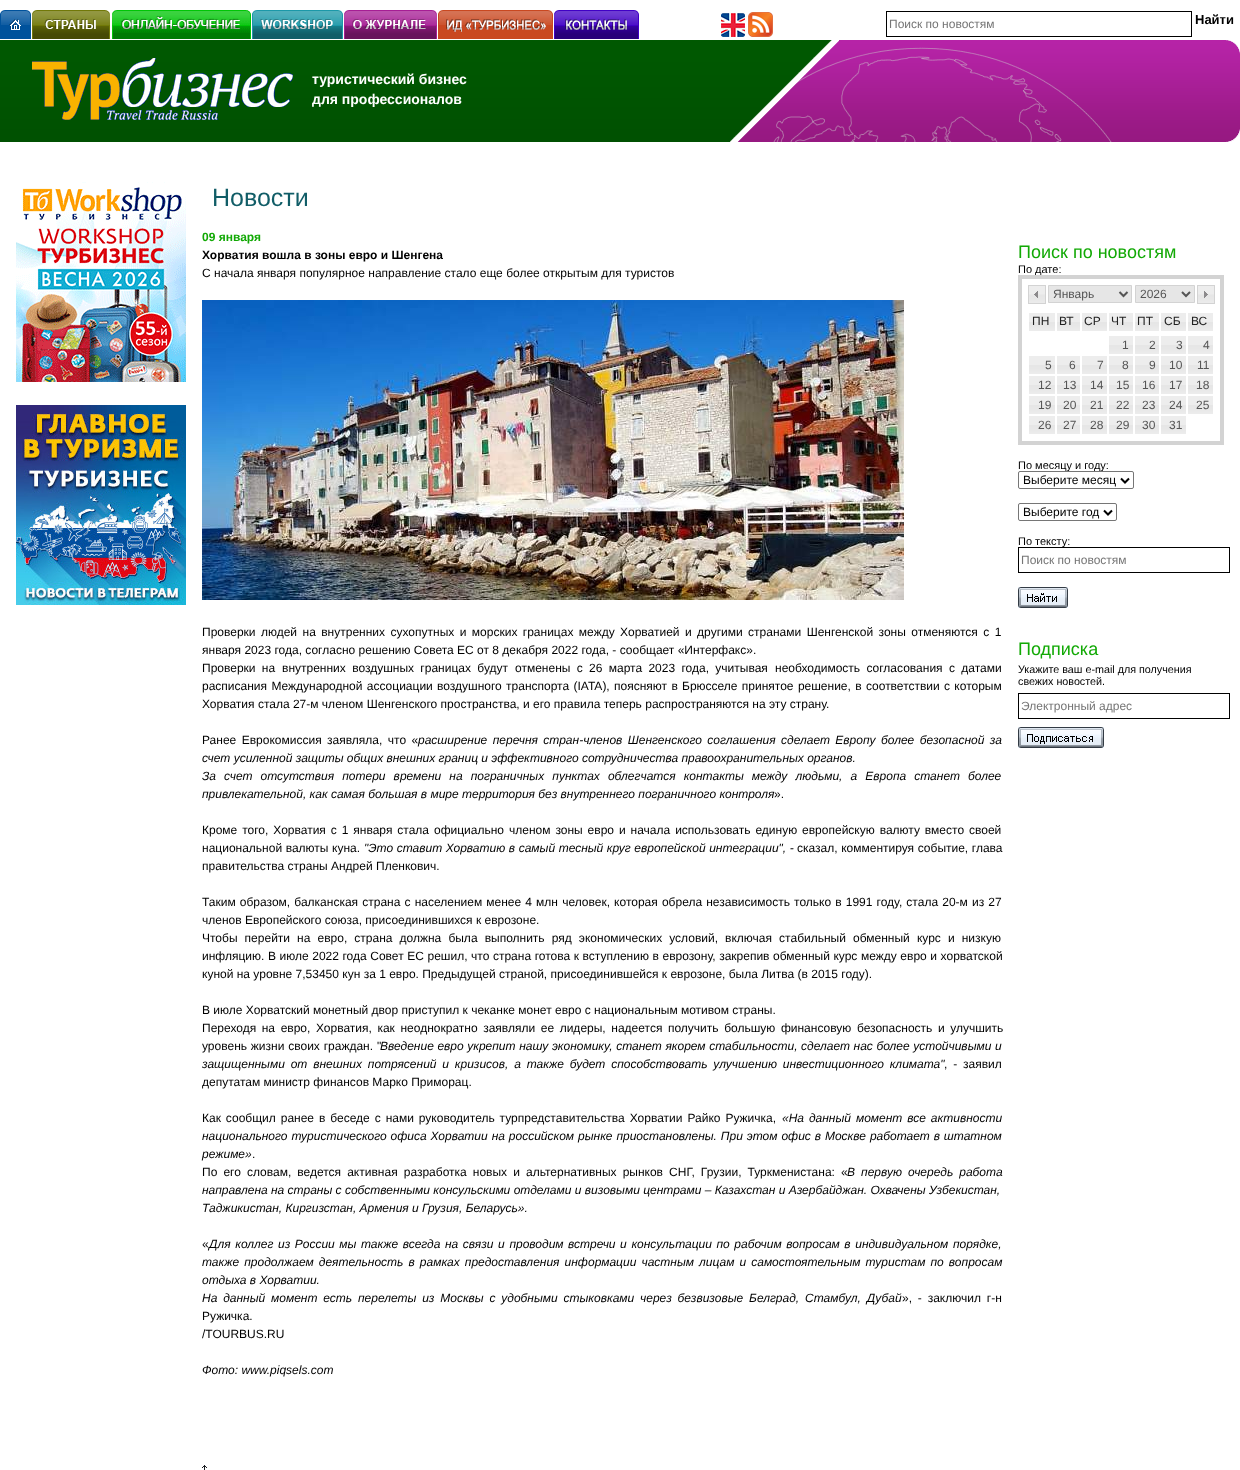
(async () => {
    const canvas = document.querySelector("canvas");
    canvas.width = 1240;
    canvas.height = 1470;
    const context = canvas.getContext("2d");
    context.miterLimit = 4;
    context.fontKerning = "normal";
    function write(s, x, y, font, color) {
        context.font = font;
        context.fillStyle = color;
        context.fillText(s, x, y);
    }
    function block(x, y, w, h, color) {
        context.fillStyle = color;
        context.fillRect(x, y, w, h);
    }
    async function photo(src, x, y, w, h) {
        const img = new Image();
        img.src = src;
        await img.decode();
        context.drawImage(img, x, y, w, h);
    }

    block(0, 0, 1240, 1470, "rgb(255, 255, 255)");
    await photo("media/1.png", 0, 10, 31, 29);
    await photo("media/2.png", 32, 10, 78, 29);
    await photo("media/3.png", 112, 10, 139, 29);
    await photo("media/4.png", 252, 10, 91, 29);
    await photo("media/5.png", 344, 10, 93, 29);
    await photo("media/6.png", 438, 10, 115, 29);
    await photo("media/7.png", 554, 10, 85, 29);
    await photo("media/8.png", 721, 13, 24, 24);
    await photo("media/9.png", 748, 12, 25, 25);
    context.strokeStyle = "rgb(0, 0, 0)";
    context.strokeRect(886.5, 11.5, 305, 25);
    write("Поиск по новостям", 889, 28, "12px Liberation Sans", "rgb(117, 117, 117)");
    write("Найти", 1195, 24, "bold 13px Liberation Sans", "rgb(0, 0, 0)");
    await photo("media/10.png", 0, 40, 730, 102);
    await photo("media/11.png", 730, 40, 109, 102);
    await photo("media/12.png", 32, 58, 261, 62);
    write("туристический бизнес", 312, 84, "bold 14px Liberation Sans", "rgb(255, 255, 255)");
    write("для профессионалов", 312, 104, "bold 14px Liberation Sans", "rgb(255, 255, 255)");
    await photo("media/13.png", 839, 40, 401, 102);
    await photo("media/14.png", 16, 182, 170, 200);
    await photo("media/15.png", 16, 405, 170, 200);
    write("Новости", 212, 206, "25px Liberation Sans", "rgb(17, 93, 103)");
    write("09 января", 202, 241, "bold 12px Liberation Sans", "rgb(18, 169, 5)");
    write("Хорватия вошла в зоны евро и Шенгена", 202, 259, "bold 12px Liberation Sans", "rgb(0, 0, 0)");
    write("С начала января популярное направление стало еще более открытым для туристов", 202, 277, "12px Liberation Sans", "rgb(0, 0, 0)");
    await photo("media/16.png", 202, 300, 702, 300);
    context.wordSpacing = "2.1px";
    write("Проверки людей на внутренних сухопутных и морских границах между Хорватией и другими странами Шенгенской зоны отменяются с 1", 202, 636, "12px Liberation Sans", "rgb(0, 0, 0)");
    context.wordSpacing = "0px";
    write("января 2023 года, согласно решению Совета ЕС от 8 декабря 2022 года, - сообщает «Интерфакс».", 202, 654, "12px Liberation Sans", "rgb(0, 0, 0)");
    context.wordSpacing = "3px";
    write("Проверки на", 202, 672, "12px Liberation Sans", "rgb(0, 0, 0)");
    write("внутренних воздушных границах будут", 282, 672, "12px Liberation Sans", "rgb(0, 0, 0)");
    write("отменены с 26 марта 2023 года, учитывая", 515, 672, "12px Liberation Sans", "rgb(0, 0, 0)");
    write("необходимость согласования с датами", 775, 672, "12px Liberation Sans", "rgb(0, 0, 0)");
    context.wordSpacing = "1px";
    write("расписания Международной ассоциации", 202, 690, "12px Liberation Sans", "rgb(0, 0, 0)");
    write("воздушного транспорта (IATA), поясняют в", 437, 690, "12px Liberation Sans", "rgb(0, 0, 0)");
    write("Брюсселе принятое решение, в соответствии", 682, 690, "12px Liberation Sans", "rgb(0, 0, 0)");
    write("с которым", 944, 690, "12px Liberation Sans", "rgb(0, 0, 0)");
    context.wordSpacing = "0px";
    write("Хорватия стала 27-м членом Шенгенского пространства, и его правила теперь распространяются на эту страну.", 202, 708, "12px Liberation Sans", "rgb(0, 0, 0)");
    context.wordSpacing = "2.1px";
    write("Ранее Еврокомиссия заявляла, что «", 202, 744, "12px Liberation Sans", "rgb(0, 0, 0)");
    write("расширение перечня стран-членов Шенгенского соглашения сделает Европу более безопасной за", 418, 744, "italic 12px Liberation Sans", "rgb(0, 0, 0)");
    context.wordSpacing = "0px";
    write("счет усиленной защиты общих внешних границ и эффективного сотрудничества правоохранительных органов.", 202, 762, "italic 12px Liberation Sans", "rgb(0, 0, 0)");
    context.wordSpacing = "4.75px";
    write("За счет отсутствия потери времени на пограничных пунктах облегчатся контакты между людьми, а Европа станет более", 202, 780, "italic 12px Liberation Sans", "rgb(0, 0, 0)");
    context.wordSpacing = "0px";
    write("привлекательной, как самая большая в мире территория без внутреннего пограничного контроля", 202, 798, "italic 12px Liberation Sans", "rgb(0, 0, 0)");
    write("».", 774, 798, "12px Liberation Sans", "rgb(0, 0, 0)");
    context.wordSpacing = "1.6px";
    write("Кроме того, Хорватия с 1 января стала официально членом зоны евро и начала использовать единую европейскую валюту вместо своей", 202, 834, "12px Liberation Sans", "rgb(0, 0, 0)");
    context.wordSpacing = "0.25px";
    write("национальной валюты куна.", 202, 852, "12px Liberation Sans", "rgb(0, 0, 0)");
    write("\"Это ставит Хорватию в самый тесный круг европейской интеграции\", -", 364, 852, "italic 12px Liberation Sans", "rgb(0, 0, 0)");
    write("сказал, комментируя событие, глава", 797, 852, "12px Liberation Sans", "rgb(0, 0, 0)");
    context.wordSpacing = "0px";
    write("правительства страны Андрей Пленкович.", 202, 870, "12px Liberation Sans", "rgb(0, 0, 0)");
    context.wordSpacing = "0.8px";
    write("Таким образом, балканская страна с населением менее 4 млн человек, которая обрела независимость только в 1991 году, стала 20-м из 27", 202, 906, "12px Liberation Sans", "rgb(0, 0, 0)");
    context.wordSpacing = "0px";
    write("членов Европейского союза, присоединившихся к еврозоне.", 202, 924, "12px Liberation Sans", "rgb(0, 0, 0)");
    context.wordSpacing = "3.75px";
    write("Чтобы перейти на евро, страна должна была выполнить ряд экономических условий, включая стабильный обменный курс и низкую", 202, 942, "12px Liberation Sans", "rgb(0, 0, 0)");
    context.wordSpacing = "0.25px";
    write("инфляцию. В июле 2022 года Совет ЕС решил, что страна готова к вступлению в еврозону, закрепив обменный курс между евро и хорватской", 202, 960, "12px Liberation Sans", "rgb(0, 0, 0)");
    context.wordSpacing = "0px";
    write("куной на уровне 7,53450 кун за 1 евро. Предыдущей страной, присоединившейся к еврозоне, была Литва (в 2015 году).", 202, 978, "12px Liberation Sans", "rgb(0, 0, 0)");
    write("В июле Хорватский монетный двор приступил к чеканке монет евро с национальным мотивом страны.", 202, 1014, "12px Liberation Sans", "rgb(0, 0, 0)");
    context.wordSpacing = "2.25px";
    write("Переходя на евро, Хорватия, как неоднократно заявляли ее лидеры, надеется получить большую финансовую безопасность и улучшить", 202, 1032, "12px Liberation Sans", "rgb(0, 0, 0)");
    context.wordSpacing = "0.5px";
    write("уровень жизни своих граждан. \"", 202, 1050, "12px Liberation Sans", "rgb(0, 0, 0)");
    context.wordSpacing = "0.25px";
    write("Введение евро укрепит нашу экономику, станет якорем стабильности, сделает нас более устойчивыми и", 380, 1050, "italic 12px Liberation Sans", "rgb(0, 0, 0)");
    context.wordSpacing = "2.5px";
    write("защищенными от внешних потрясений и кризисов, а также будет способствовать улучшению инвестиционного климата\"", 202, 1068, "italic 12px Liberation Sans", "rgb(0, 0, 0)");
    write(", - заявил", 944, 1068, "12px Liberation Sans", "rgb(0, 0, 0)");
    context.wordSpacing = "0px";
    write("депутатам министр финансов Марко Приморац.", 202, 1086, "12px Liberation Sans", "rgb(0, 0, 0)");
    context.wordSpacing = "1.6px";
    write("Как сообщил ранее в беседе с нами руководитель турпредставительства Хорватии Райко Ружичка,", 202, 1122, "12px Liberation Sans", "rgb(0, 0, 0)");
    write("«На данный момент все активности", 782, 1122, "italic 12px Liberation Sans", "rgb(0, 0, 0)");
    context.wordSpacing = "0.6px";
    write("национального туристического офиса Хорватии на российском рынке приостановлены. При этом офис в Москве работает в штатном", 202, 1140, "italic 12px Liberation Sans", "rgb(0, 0, 0)");
    context.wordSpacing = "0px";
    write("режиме»", 202, 1158, "italic 12px Liberation Sans", "rgb(0, 0, 0)");
    write(".", 252, 1158, "12px Liberation Sans", "rgb(0, 0, 0)");
    context.wordSpacing = "2.75px";
    write("По его словам, ведется активная разработка новых и альтернативных рынков СНГ, Грузии, Туркменистана: «", 202, 1176, "12px Liberation Sans", "rgb(0, 0, 0)");
    write("В первую очередь работа", 847, 1176, "italic 12px Liberation Sans", "rgb(0, 0, 0)");
    context.wordSpacing = "0px";
    write("направлена на страны с собственными консульскими отделами и визовыми центрами – Казахстан и Азербайджан. Охвачены Узбекистан,", 202, 1194, "italic 12px Liberation Sans", "rgb(0, 0, 0)");
    write("Таджикистан, Киргизстан, Армения и Грузия, Беларусь».", 202, 1212, "italic 12px Liberation Sans", "rgb(0, 0, 0)");
    write("«", 202, 1248, "12px Liberation Sans", "rgb(0, 0, 0)");
    context.wordSpacing = "1.25px";
    write("Для коллег из России мы также всегда на связи и проводим встречи и консультации по рабочим вопросам в индивидуальном порядке,", 209, 1248, "italic 12px Liberation Sans", "rgb(0, 0, 0)");
    context.wordSpacing = "1.75px";
    write("также продолжаем деятельность в рамках предоставления информации частным лицам и самостоятельным туристам по вопросам", 202, 1266, "italic 12px Liberation Sans", "rgb(0, 0, 0)");
    context.wordSpacing = "0px";
    write("отдыха в Хорватии.", 202, 1284, "italic 12px Liberation Sans", "rgb(0, 0, 0)");
    context.wordSpacing = "2.5px";
    write("На данный момент есть перелеты из Москвы с удобными стыковками через безвизовые Белград, Стамбул, Дубай", 202, 1302, "italic 12px Liberation Sans", "rgb(0, 0, 0)");
    write("», - заключил г-н", 902, 1302, "12px Liberation Sans", "rgb(0, 0, 0)");
    context.wordSpacing = "0px";
    write("Ружичка.", 202, 1320, "12px Liberation Sans", "rgb(0, 0, 0)");
    write("/TOURBUS.RU", 202, 1338, "12px Liberation Sans", "rgb(0, 0, 0)");
    write("Фото: www.piqsels.com", 202, 1374, "italic 12px Liberation Sans", "rgb(0, 0, 0)");
    await photo("media/17.png", 202, 1465, 5, 5);
    write("Поиск по новостям", 1018, 258, "18px Liberation Sans", "rgb(18, 169, 5)");
    write("По дате:", 1018, 273, "11px Liberation Sans", "rgb(0, 0, 0)");
    context.strokeStyle = "rgb(211, 211, 211)";
    context.lineWidth = 4;
    context.strokeRect(1020, 277, 202, 166);
    await photo("media/18.png", 1029, 286, 16, 17);
    await photo("media/19.png", 1034, 291, 4, 7);
    context.lineWidth = 1;
    context.strokeRect(1028.5, 285.5, 17, 18);
    await photo("media/18.png", 1198, 286, 16, 17);
    await photo("media/20.png", 1204, 291, 4, 7);
    context.strokeRect(1197.5, 285.5, 17, 18);
    context.fillStyle = "rgb(230, 230, 230)";
    context.beginPath();
    context.rect(1048.5, 285.5, 83, 17);
    context.fill();
    context.stroke();
    context.beginPath();
    context.moveTo(1119.5, 292);
    context.lineTo(1123.5, 296);
    context.lineTo(1127.5, 292);
    context.strokeStyle = "rgb(85, 85, 85)";
    context.lineWidth = 2;
    context.stroke();
    write("Январь", 1053, 298, "12px Liberation Sans", "rgb(85, 85, 85)");
    context.fillStyle = "rgb(230, 230, 230)";
    context.beginPath();
    context.rect(1135.5, 285.5, 59, 17);
    context.fill();
    context.strokeStyle = "rgb(211, 211, 211)";
    context.lineWidth = 1;
    context.stroke();
    context.beginPath();
    context.moveTo(1182, 292);
    context.lineTo(1186, 296);
    context.lineTo(1190, 292);
    context.strokeStyle = "rgb(85, 85, 85)";
    context.lineWidth = 2;
    context.stroke();
    write("2026", 1140, 298, "12px Liberation Sans", "rgb(85, 85, 85)");
    await photo("media/21.png", 1029, 313, 26, 18);
    write("ПН", 1032, 325, "12px Liberation Sans", "rgb(34, 34, 34)");
    await photo("media/22.png", 1057, 313, 23, 18);
    write("ВТ", 1059, 325, "12px Liberation Sans", "rgb(34, 34, 34)");
    await photo("media/23.png", 1082, 313, 25, 18);
    write("СР", 1084, 325, "12px Liberation Sans", "rgb(34, 34, 34)");
    await photo("media/24.png", 1109, 313, 24, 18);
    write("ЧТ", 1111, 325, "12px Liberation Sans", "rgb(34, 34, 34)");
    await photo("media/24.png", 1135, 313, 24, 18);
    write("ПТ", 1137, 325, "12px Liberation Sans", "rgb(34, 34, 34)");
    await photo("media/23.png", 1161, 313, 25, 18);
    write("СБ", 1164, 325, "12px Liberation Sans", "rgb(34, 34, 34)");
    await photo("media/23.png", 1188, 313, 25, 18);
    write("ВС", 1191, 325, "12px Liberation Sans", "rgb(34, 34, 34)");
    await photo("media/24.png", 1109, 336, 24, 18);
    write("1", 1122, 349, "12px Liberation Sans", "rgb(85, 85, 85)");
    await photo("media/24.png", 1135, 336, 24, 18);
    write("2", 1149, 349, "12px Liberation Sans", "rgb(85, 85, 85)");
    await photo("media/23.png", 1161, 336, 25, 18);
    write("3", 1176, 349, "12px Liberation Sans", "rgb(85, 85, 85)");
    await photo("media/23.png", 1188, 336, 25, 18);
    write("4", 1203, 349, "12px Liberation Sans", "rgb(85, 85, 85)");
    await photo("media/21.png", 1029, 356, 26, 18);
    write("5", 1045, 369, "12px Liberation Sans", "rgb(85, 85, 85)");
    await photo("media/22.png", 1057, 356, 23, 18);
    write("6", 1069, 369, "12px Liberation Sans", "rgb(85, 85, 85)");
    await photo("media/23.png", 1082, 356, 25, 18);
    write("7", 1097, 369, "12px Liberation Sans", "rgb(85, 85, 85)");
    await photo("media/24.png", 1109, 356, 24, 18);
    write("8", 1122, 369, "12px Liberation Sans", "rgb(85, 85, 85)");
    await photo("media/24.png", 1135, 356, 24, 18);
    write("9", 1149, 369, "12px Liberation Sans", "rgb(85, 85, 85)");
    await photo("media/23.png", 1161, 356, 25, 18);
    write("10", 1169, 369, "12px Liberation Sans", "rgb(85, 85, 85)");
    await photo("media/23.png", 1188, 356, 25, 18);
    write("11", 1197, 369, "12px Liberation Sans", "rgb(85, 85, 85)");
    await photo("media/21.png", 1029, 376, 26, 18);
    write("12", 1038, 389, "12px Liberation Sans", "rgb(85, 85, 85)");
    await photo("media/22.png", 1057, 376, 23, 18);
    write("13", 1063, 389, "12px Liberation Sans", "rgb(85, 85, 85)");
    await photo("media/23.png", 1082, 376, 25, 18);
    write("14", 1090, 389, "12px Liberation Sans", "rgb(85, 85, 85)");
    await photo("media/24.png", 1109, 376, 24, 18);
    write("15", 1116, 389, "12px Liberation Sans", "rgb(85, 85, 85)");
    await photo("media/24.png", 1135, 376, 24, 18);
    write("16", 1142, 389, "12px Liberation Sans", "rgb(85, 85, 85)");
    await photo("media/23.png", 1161, 376, 25, 18);
    write("17", 1169, 389, "12px Liberation Sans", "rgb(85, 85, 85)");
    await photo("media/23.png", 1188, 376, 25, 18);
    write("18", 1196, 389, "12px Liberation Sans", "rgb(85, 85, 85)");
    await photo("media/21.png", 1029, 396, 26, 18);
    write("19", 1038, 409, "12px Liberation Sans", "rgb(85, 85, 85)");
    await photo("media/22.png", 1057, 396, 23, 18);
    write("20", 1063, 409, "12px Liberation Sans", "rgb(85, 85, 85)");
    await photo("media/23.png", 1082, 396, 25, 18);
    write("21", 1090, 409, "12px Liberation Sans", "rgb(85, 85, 85)");
    await photo("media/24.png", 1109, 396, 24, 18);
    write("22", 1116, 409, "12px Liberation Sans", "rgb(85, 85, 85)");
    await photo("media/24.png", 1135, 396, 24, 18);
    write("23", 1142, 409, "12px Liberation Sans", "rgb(85, 85, 85)");
    await photo("media/23.png", 1161, 396, 25, 18);
    write("24", 1169, 409, "12px Liberation Sans", "rgb(85, 85, 85)");
    await photo("media/23.png", 1188, 396, 25, 18);
    write("25", 1196, 409, "12px Liberation Sans", "rgb(85, 85, 85)");
    await photo("media/21.png", 1029, 416, 26, 18);
    write("26", 1038, 429, "12px Liberation Sans", "rgb(85, 85, 85)");
    await photo("media/22.png", 1057, 416, 23, 18);
    write("27", 1063, 429, "12px Liberation Sans", "rgb(85, 85, 85)");
    await photo("media/23.png", 1082, 416, 25, 18);
    write("28", 1090, 429, "12px Liberation Sans", "rgb(85, 85, 85)");
    await photo("media/24.png", 1109, 416, 24, 18);
    write("29", 1116, 429, "12px Liberation Sans", "rgb(85, 85, 85)");
    await photo("media/24.png", 1135, 416, 24, 18);
    write("30", 1142, 429, "12px Liberation Sans", "rgb(85, 85, 85)");
    await photo("media/23.png", 1161, 416, 25, 18);
    write("31", 1169, 429, "12px Liberation Sans", "rgb(85, 85, 85)");
    write("По месяцу и году:", 1018, 469, "11px Liberation Sans", "rgb(0, 0, 0)");
    context.fillStyle = "rgb(255, 255, 255)";
    context.beginPath();
    context.roundRect(1018.5, 471.5, 115, 17, 1.5);
    context.fill();
    context.strokeStyle = "rgb(118, 118, 118)";
    context.lineWidth = 1;
    context.stroke();
    context.beginPath();
    context.moveTo(1121, 478.5);
    context.lineTo(1125, 482.5);
    context.lineTo(1129, 478.5);
    context.strokeStyle = "rgb(0, 0, 0)";
    context.lineWidth = 2;
    context.stroke();
    write("Выберите месяц", 1023, 484, "12px Liberation Sans", "rgb(0, 0, 0)");
    context.beginPath();
    context.roundRect(1018.5, 503.5, 98, 17, 1.5);
    context.strokeStyle = "rgb(118, 118, 118)";
    context.lineWidth = 1;
    context.stroke();
    context.beginPath();
    context.moveTo(1104, 510.5);
    context.lineTo(1108, 514.5);
    context.lineTo(1112, 510.5);
    context.strokeStyle = "rgb(0, 0, 0)";
    context.lineWidth = 2;
    context.stroke();
    write("Выберите год", 1023, 516, "12px Liberation Sans", "rgb(0, 0, 0)");
    write("По тексту:", 1018, 545, "11px Liberation Sans", "rgb(0, 0, 0)");
    context.lineWidth = 1;
    context.strokeRect(1018.5, 547.5, 211, 25);
    write("Поиск по новостям", 1021, 564, "12px Liberation Sans", "rgb(117, 117, 117)");
    await photo("media/25.png", 1018, 587, 50, 21);
    write("Подписка", 1018, 655, "18px Liberation Sans", "rgb(18, 169, 5)");
    write("Укажите ваш e-mail для получения", 1018, 673, "10.75px Liberation Sans", "rgb(0, 0, 0)");
    write("свежих новостей.", 1018, 685, "10.75px Liberation Sans", "rgb(0, 0, 0)");
    context.strokeRect(1018.5, 693.5, 211, 25);
    write("Электронный адрес", 1021, 710, "12px Liberation Sans", "rgb(117, 117, 117)");
    await photo("media/26.png", 1018, 727, 86, 21);
})();
